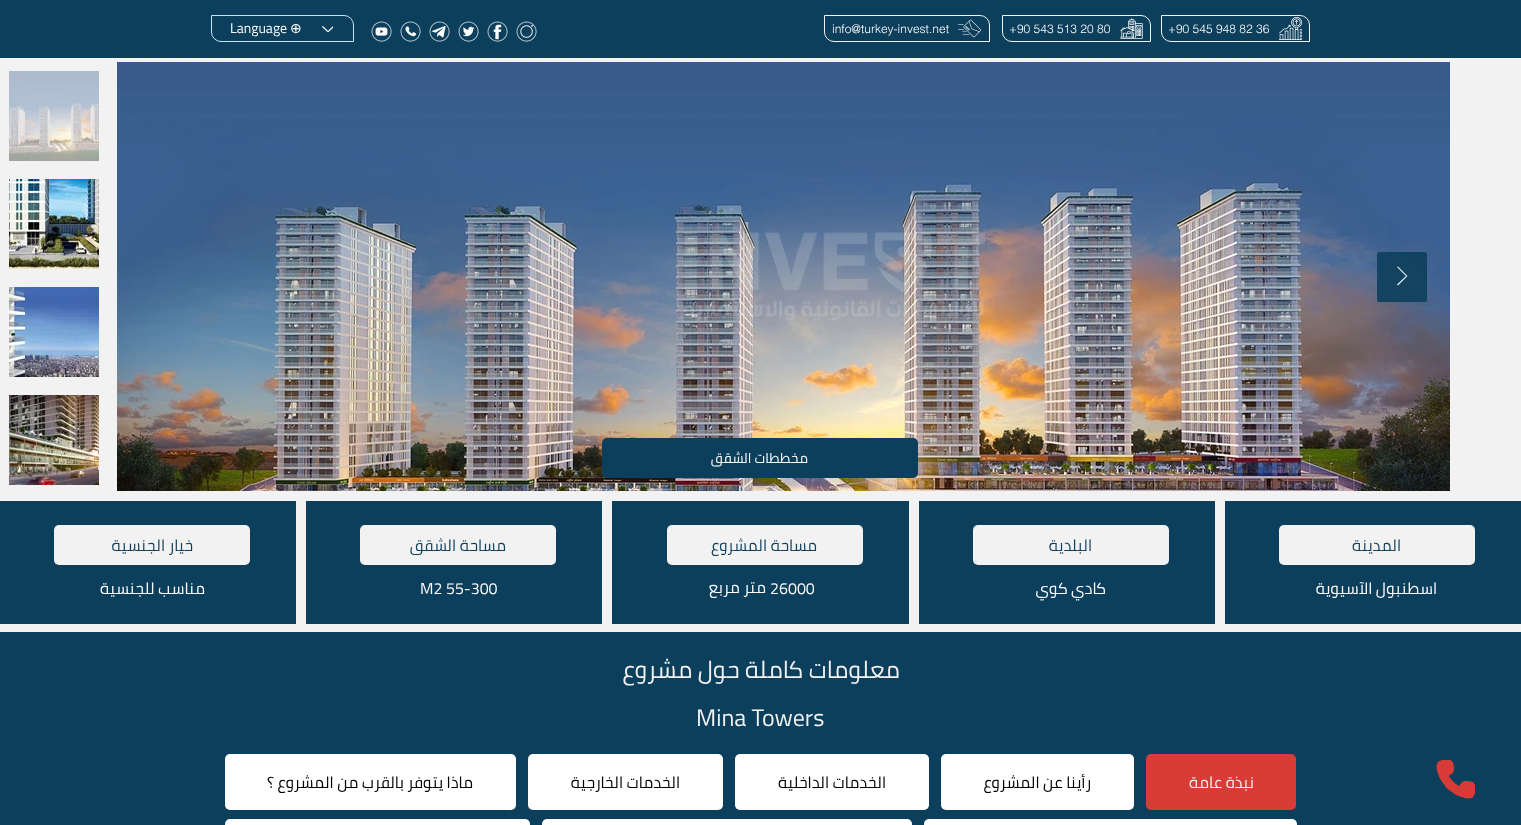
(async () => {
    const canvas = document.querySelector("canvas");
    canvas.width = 1521;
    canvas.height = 825;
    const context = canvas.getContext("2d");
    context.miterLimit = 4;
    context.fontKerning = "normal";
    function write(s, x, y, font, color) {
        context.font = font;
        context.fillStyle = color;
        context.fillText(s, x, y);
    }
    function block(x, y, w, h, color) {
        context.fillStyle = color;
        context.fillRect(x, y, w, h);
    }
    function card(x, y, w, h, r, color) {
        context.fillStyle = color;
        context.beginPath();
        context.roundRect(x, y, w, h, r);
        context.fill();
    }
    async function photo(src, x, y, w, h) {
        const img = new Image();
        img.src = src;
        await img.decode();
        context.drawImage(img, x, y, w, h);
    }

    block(0, 0, 1521, 825, "rgb(242, 242, 242)");
    block(0, 0, 1521, 58, "rgb(12, 63, 92)");
    context.beginPath();
    context.roundRect(1161.5, 15.5, 148, 26, [0, 9.5, 0, 9.5]);
    context.strokeStyle = "rgb(242, 242, 242)";
    context.stroke();
    await photo("media/1.png", 1279, 17, 23, 23);
    write("+90 545 948 82 36", 1168, 33, "300 12px helvetica", "rgb(255, 255, 255)");
    context.beginPath();
    context.roundRect(1002.5, 15.5, 148, 26, [0, 9.5, 0, 9.5]);
    context.stroke();
    await photo("media/2.png", 1120, 18, 23, 21);
    write("+90 543 513 20 80", 1009, 33, "300 12px helvetica", "rgb(255, 255, 255)");
    context.beginPath();
    context.roundRect(824.5, 15.5, 165, 26, [0, 9.5, 0, 9.5]);
    context.stroke();
    await photo("media/3.png", 958, 19, 23, 19);
    write("info@turkey-invest.net", 832, 33, "300 12px helvetica", "rgb(255, 255, 255)");
    await photo("media/4.png", 516, 21, 21, 21);
    await photo("media/5.png", 487, 21, 21, 21);
    await photo("media/6.png", 458, 21, 21, 21);
    await photo("media/7.png", 429, 21, 21, 21);
    await photo("media/8.png", 400, 21, 21, 21);
    await photo("media/9.png", 371, 21, 21, 21);
    context.beginPath();
    context.roundRect(211.5, 15.5, 142, 26, [0, 9.5, 0, 9.5]);
    context.strokeStyle = "rgb(198, 226, 247)";
    context.stroke();
    await photo("media/10.png", 322, 26, 11, 6);
    write("⊕", 290, 33, "14px DejaVu Sans", "rgb(255, 255, 255)");
    write("Language", 230, 33, "14px Cairo", "rgb(255, 255, 255)");
    block(0, 632, 1521, 193, "rgb(12, 63, 92)");
    await photo("media/11.png", 1436, 760, 39, 39);
    await photo("media/12.png", 117, 62, 1333, 429);
    card(1377, 252, 50, 50, 2.5, "rgba(12, 63, 92, 0.9)");
    context.fillStyle = "rgb(231, 236, 239)";
    context.beginPath();
    context.moveTo(1397, 267);
    context.lineTo(1398, 266.5);
    context.lineTo(1407.5, 276);
    context.lineTo(1398, 285.5);
    context.lineTo(1397, 284.5);
    context.lineTo(1406, 276);
    context.closePath();
    context.fill();
    await photo("media/13.png", 9, 71, 90, 90);
    await photo("media/14.png", 9, 179, 90, 90);
    await photo("media/15.png", 9, 287, 90, 90);
    await photo("media/16.png", 9, 395, 90, 90);
    await photo("media/17.png", 683, 232, 303, 89);
    card(602, 438, 316, 40, 5, "rgb(12, 63, 92)");
    context.direction = "rtl";
    write("مخططات الشقق", 808, 463, "14px Cairo", "rgb(255, 255, 255)");
    block(1225, 501, 296, 123, "rgb(12, 63, 92)");
    card(1279, 525, 196, 40, 5, "rgb(242, 242, 242)");
    write("المدينة", 1401, 551, "16px Cairo", "rgb(12, 63, 92)");
    write("اسطنبول الآسيوية", 1437, 594, "16px Cairo", "rgb(255, 255, 255)");
    block(919, 501, 296, 123, "rgb(12, 63, 92)");
    card(973, 525, 196, 40, 5, "rgb(242, 242, 242)");
    write("البلدية", 1092, 551, "16px Cairo", "rgb(12, 63, 92)");
    write("كادي كوي", 1106, 594, "16px Cairo", "rgb(255, 255, 255)");
    block(612, 501, 297, 123, "rgb(12, 63, 92)");
    card(667, 525, 196, 40, 5, "rgb(242, 242, 242)");
    write("مساحة المشروع", 817, 551, "16px Cairo", "rgb(12, 63, 92)");
    context.direction = "ltr";
    write("26000", 770, 594, "16px Cairo", "rgb(255, 255, 255)");
    context.direction = "rtl";
    write("متر مربع", 766, 593, "16px Cairo", "rgb(255, 255, 255)");
    block(306, 501, 296, 123, "rgb(12, 63, 92)");
    card(360, 525, 196, 40, 5, "rgb(242, 242, 242)");
    write("مساحة الشقق", 506, 551, "16px Cairo", "rgb(12, 63, 92)");
    context.direction = "ltr";
    write("M2 55-300", 420, 594, "16px Cairo", "rgb(255, 255, 255)");
    block(0, 501, 296, 123, "rgb(12, 63, 92)");
    card(54, 525, 196, 40, 5, "rgb(242, 242, 242)");
    context.direction = "rtl";
    write("خيار الجنسية", 193, 551, "16px Cairo", "rgb(12, 63, 92)");
    write("مناسب للجنسية", 205, 594, "16px Cairo", "rgb(255, 255, 255)");
    write("معلومات كاملة حول مشروع", 900, 678, "24px Cairo", "rgb(242, 242, 242)");
    context.direction = "ltr";
    write("Mina Towers", 696, 726, "24px Cairo", "rgb(242, 242, 242)");
    card(1146, 754, 150, 56, 5, "rgb(215, 60, 55)");
    context.direction = "rtl";
    write("نبذة عامة", 1254, 788, "16px Cairo", "rgb(242, 242, 242)");
    card(941, 754, 193, 56, 5, "rgb(255, 255, 255)");
    write("رأينا عن المشروع", 1091, 788, "16px Cairo", "rgb(0, 0, 0)");
    card(735, 754, 194, 56, 5, "rgb(255, 255, 255)");
    write("الخدمات الداخلية", 886, 788, "16px Cairo", "rgb(0, 0, 0)");
    card(528, 754, 195, 56, 5, "rgb(255, 255, 255)");
    write("الخدمات الخارجية", 680, 788, "16px Cairo", "rgb(0, 0, 0)");
    card(225, 754, 291, 56, 5, "rgb(255, 255, 255)");
    write("ماذا يتوفر بالقرب من المشروع ؟", 473, 788, "16px Cairo", "rgb(0, 0, 0)");
    card(924, 819, 373, 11, 5, "rgb(255, 255, 255)");
    card(542, 819, 370, 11, 5, "rgb(255, 255, 255)");
    card(225, 819, 305, 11, 5, "rgb(255, 255, 255)");
})();
